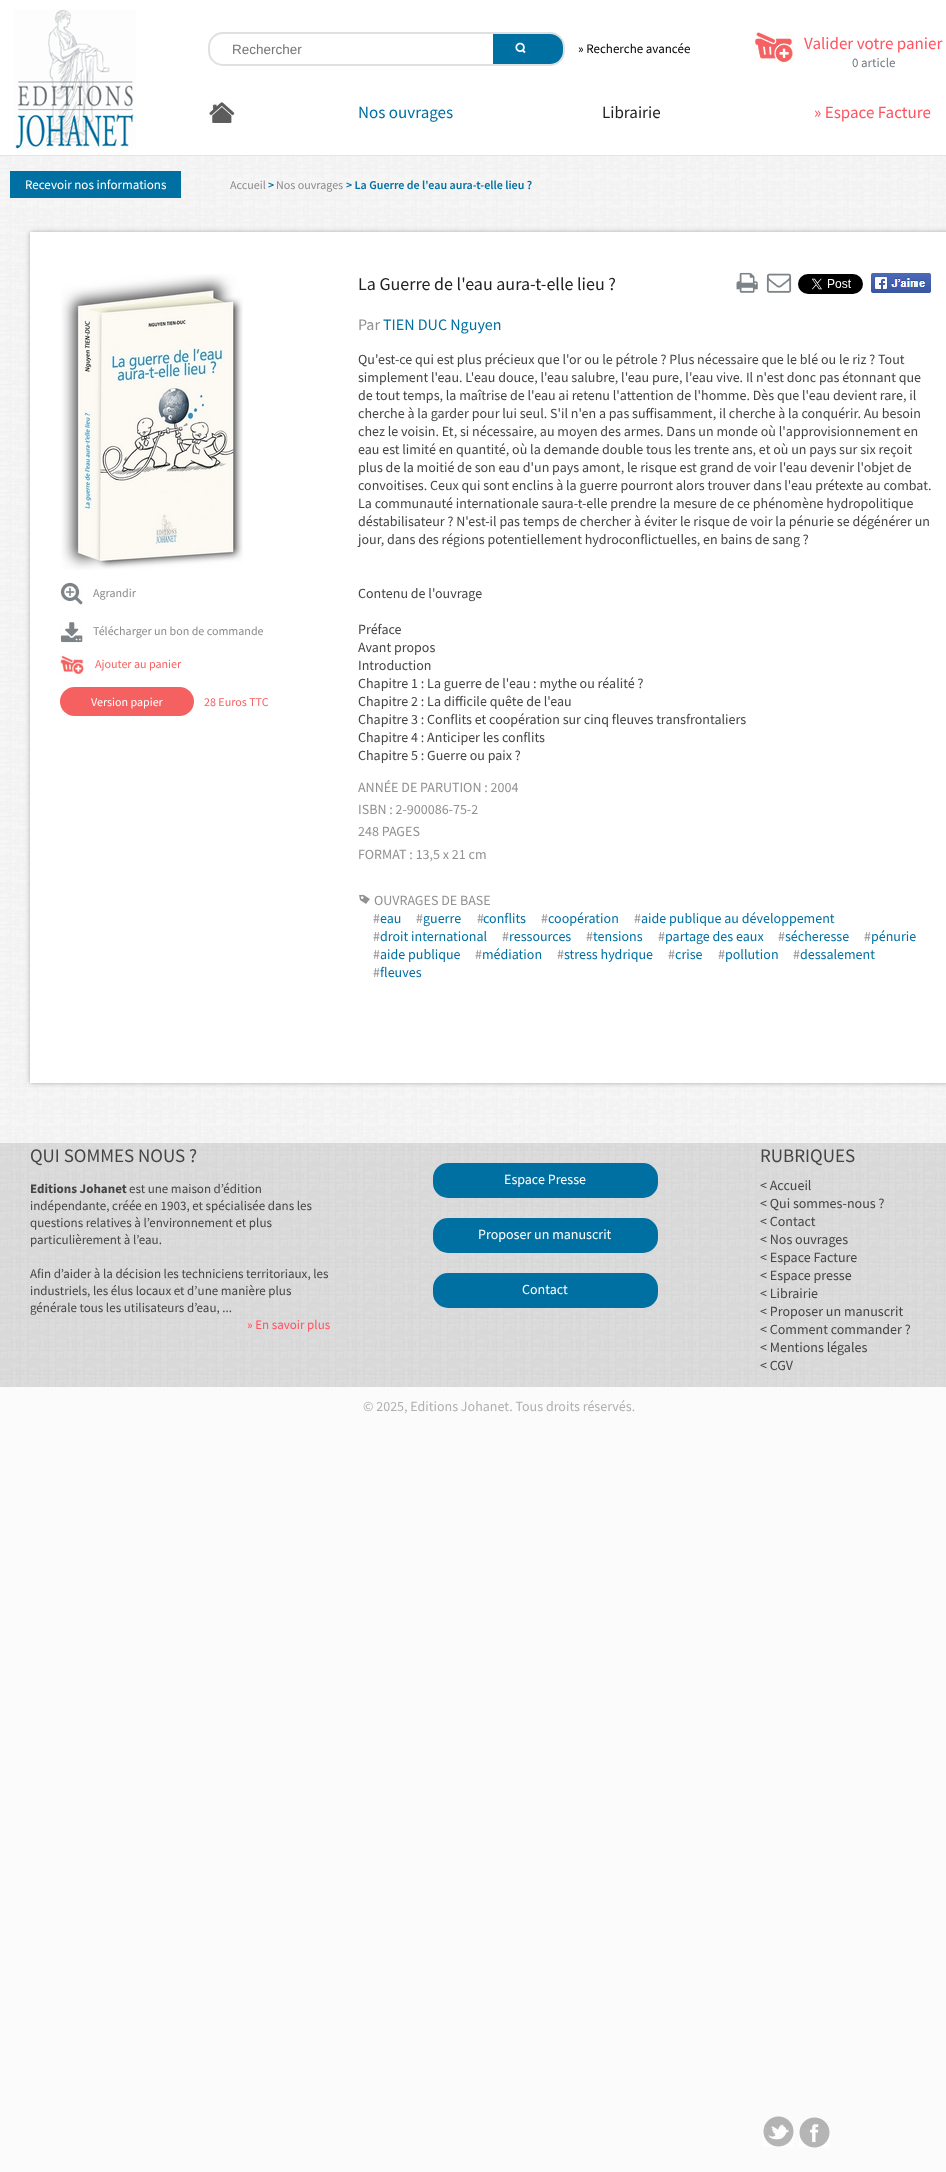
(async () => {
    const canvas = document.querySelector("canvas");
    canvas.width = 946;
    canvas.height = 2172;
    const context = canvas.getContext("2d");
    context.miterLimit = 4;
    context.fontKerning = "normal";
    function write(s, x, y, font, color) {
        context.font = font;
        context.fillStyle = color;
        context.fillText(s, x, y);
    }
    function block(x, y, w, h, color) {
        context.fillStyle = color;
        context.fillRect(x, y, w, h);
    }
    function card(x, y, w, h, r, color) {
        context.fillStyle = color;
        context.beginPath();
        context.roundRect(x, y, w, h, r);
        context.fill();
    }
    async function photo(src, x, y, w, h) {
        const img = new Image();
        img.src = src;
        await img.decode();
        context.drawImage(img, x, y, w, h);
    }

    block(0, 0, 946, 2172, "rgb(251, 251, 251)");
    block(0, 0, 946, 155, "rgb(255, 255, 255)");
    block(0, 155, 946, 1, "rgb(228, 228, 228)");
    await photo("media/1.png", 14, 9, 122, 140);
    context.beginPath();
    context.roundRect(209, 33, 355, 32, 14);
    context.strokeStyle = "rgb(224, 224, 224)";
    context.lineWidth = 2;
    context.stroke();
    write("Rechercher", 232, 54, "13.5px Liberation Sans", "rgb(117, 117, 117)");
    context.fillStyle = "rgb(0, 112, 162)";
    context.beginPath();
    context.roundRect(493, 34, 70, 30, [0, 13, 13, 0]);
    context.fill();
    await photo("media/2.png", 509, 42, 24, 16);
    write("» Recherche avancée", 578, 53, "13px Source Sans Pro", "rgb(0, 0, 0)");
    await photo("media/3.png", 754, 32, 40, 31);
    write("Valider votre panier", 804, 49, "17px Source Sans Pro", "rgb(255, 83, 95)");
    write("0 article", 852, 67, "13px Source Sans Pro", "rgb(115, 122, 128)");
    await photo("media/4.png", 209, 102, 26, 21);
    write("Nos ouvrages", 358, 118, "17px Source Sans Pro", "rgb(0, 112, 162)");
    write("Librairie", 602, 118, "17px Source Sans Pro", "rgb(34, 34, 34)");
    write("» Espace Facture", 814, 118, "17px Source Sans Pro", "rgb(255, 83, 95)");
    await photo("media/5.png", 0, 156, 946, 987);
    block(10, 171, 171, 27, "rgb(0, 112, 162)");
    write("Recevoir nos informations", 25, 189, "13px Source Sans Pro", "rgb(255, 255, 255)");
    write("Accueil", 230, 189, "12px Source Sans Pro", "rgb(139, 139, 139)");
    write(">", 268, 189, "600 12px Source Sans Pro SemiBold", "rgb(0, 112, 162)");
    write("Nos ouvrages", 276, 189, "12px Source Sans Pro", "rgb(139, 139, 139)");
    write("> La Guerre de l'eau aura-t-elle lieu ?", 346, 189, "600 12px Source Sans Pro SemiBold", "rgb(0, 112, 162)");
    context.fillStyle = "rgb(170, 170, 170)";
    context.filter = "blur(2.5px)";
    context.beginPath();
    context.rect(30, 232, 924, 851);
    context.fill();
    context.filter = "none";
    block(30, 232, 916, 851, "rgb(255, 255, 255)");
    await photo("media/6.png", 61, 274, 182, 296);
    await photo("media/7.png", 60, 582, 23, 24);
    write("Agrandir", 93, 597, "12px Source Sans Pro", "rgb(139, 139, 139)");
    await photo("media/8.png", 60, 622, 23, 21);
    write("Télécharger un bon de commande", 93, 635, "12px Source Sans Pro", "rgb(139, 139, 139)");
    await photo("media/9.png", 60, 655, 24, 20);
    write("Ajouter au panier", 95, 668, "12px Source Sans Pro", "rgb(245, 97, 97)");
    card(60, 687, 134, 29, 14.5, "rgb(245, 97, 97)");
    write("Version papier", 91, 706, "12px Source Sans Pro", "rgb(255, 255, 255)");
    write("28 Euros TTC", 204, 706, "12px Source Sans Pro", "rgb(245, 97, 97)");
    write("La Guerre de l'eau aura-t-elle lieu ?", 358, 290, "18px Source Sans Pro", "rgb(34, 34, 34)");
    await photo("media/10.png", 736, 272, 23, 21);
    await photo("media/11.png", 766, 273, 26, 21);
    await photo("media/12.png", 798, 274, 65, 20);
    await photo("media/13.png", 870, 272, 62, 22);
    write("Par", 358, 330, "16px Source Sans Pro", "rgb(145, 145, 145)");
    write("TIEN DUC Nguyen", 383, 330, "16px Source Sans Pro", "rgb(0, 112, 162)");
    write("Qu'est-ce qui est plus précieux que l'or ou le pétrole ? Plus nécessaire que le blé ou le riz ? Tout", 358, 364, "14px Source Sans Pro", "rgb(69, 69, 69)");
    write("simplement l'eau. L'eau douce, l'eau salubre, l'eau pure, l'eau vive. Il n'est donc pas étonnant que", 358, 382, "14px Source Sans Pro", "rgb(69, 69, 69)");
    write("de tout temps, la maîtrise de l'eau ai retenu l'attention de l'homme. Dès que l'eau devient rare, il", 358, 400, "14px Source Sans Pro", "rgb(69, 69, 69)");
    write("cherche à la garder pour lui seul. S'il n'en a pas suffisamment, il cherche à la conquérir. Au besoin", 358, 418, "14px Source Sans Pro", "rgb(69, 69, 69)");
    write("chez le voisin. Et, si nécessaire, au moyen des armes. Dans un monde où l'approvisionnement en", 358, 436, "14px Source Sans Pro", "rgb(69, 69, 69)");
    write("eau est limité en quantité, où la demande double tous les trente ans, et où un pays sur six reçoit", 358, 454, "14px Source Sans Pro", "rgb(69, 69, 69)");
    write("plus de la moitié de son eau d'un pays amont, le risque est grand de voir l'eau devenir l'objet de", 358, 472, "14px Source Sans Pro", "rgb(69, 69, 69)");
    write("convoitises. Ceux qui sont enclins à la guerre pourront alors trouver dans l'eau prétexte au combat.", 358, 490, "14px Source Sans Pro", "rgb(69, 69, 69)");
    write("La communauté internationale saura-t-elle prendre la mesure de ce phénomène hydropolitique", 358, 508, "14px Source Sans Pro", "rgb(69, 69, 69)");
    write("déstabilisateur ? N'est-il pas temps de chercher à éviter le risque de voir la pénurie se dégénérer un", 358, 526, "14px Source Sans Pro", "rgb(69, 69, 69)");
    write("jour, dans des régions potentiellement hydroconflictuelles, en bains de sang ?", 358, 544, "14px Source Sans Pro", "rgb(69, 69, 69)");
    write("Contenu de l'ouvrage", 358, 598, "14px Source Sans Pro", "rgb(69, 69, 69)");
    write("Préface", 358, 634, "14px Source Sans Pro", "rgb(69, 69, 69)");
    write("Avant propos", 358, 652, "14px Source Sans Pro", "rgb(69, 69, 69)");
    write("Introduction", 358, 670, "14px Source Sans Pro", "rgb(69, 69, 69)");
    write("Chapitre 1 : La guerre de l'eau : mythe ou réalité ?", 358, 688, "14px Source Sans Pro", "rgb(69, 69, 69)");
    write("Chapitre 2 : La difficile quête de l'eau", 358, 706, "14px Source Sans Pro", "rgb(69, 69, 69)");
    write("Chapitre 3 : Conflits et coopération sur cinq fleuves transfrontaliers", 358, 724, "14px Source Sans Pro", "rgb(69, 69, 69)");
    write("Chapitre 4 : Anticiper les conflits", 358, 742, "14px Source Sans Pro", "rgb(69, 69, 69)");
    write("Chapitre 5 : Guerre ou paix ?", 358, 760, "14px Source Sans Pro", "rgb(69, 69, 69)");
    write("ANNÉE DE PARUTION : 2004", 358, 792, "14px Source Sans Pro", "rgb(145, 145, 145)");
    write("ISBN : 2-900086-75-2", 358, 814, "14px Source Sans Pro", "rgb(145, 145, 145)");
    write("248 PAGES", 358, 836, "14px Source Sans Pro", "rgb(145, 145, 145)");
    write("FORMAT : 13,5 x 21 cm", 358, 859, "14px Source Sans Pro", "rgb(145, 145, 145)");
    await photo("media/14.png", 359, 894, 12, 10);
    write("OUVRAGES DE BASE", 374, 905, "14px Source Sans Pro", "rgb(145, 145, 145)");
    write("#", 373, 923, "14px Source Sans Pro", "rgb(145, 145, 145)");
    write("eau", 380, 923, "14px Source Sans Pro", "rgb(0, 112, 162)");
    write("#", 416, 923, "14px Source Sans Pro", "rgb(145, 145, 145)");
    write("guerre", 423, 923, "14px Source Sans Pro", "rgb(0, 112, 162)");
    write("#", 477, 923, "14px Source Sans Pro", "rgb(145, 145, 145)");
    write("conflits", 483, 923, "14px Source Sans Pro", "rgb(0, 112, 162)");
    write("#", 541, 923, "14px Source Sans Pro", "rgb(145, 145, 145)");
    write("coopération", 548, 923, "14px Source Sans Pro", "rgb(0, 112, 162)");
    write("#", 634, 923, "14px Source Sans Pro", "rgb(145, 145, 145)");
    write("aide publique au développement", 641, 923, "14px Source Sans Pro", "rgb(0, 112, 162)");
    write("#", 373, 941, "14px Source Sans Pro", "rgb(145, 145, 145)");
    write("droit international", 380, 941, "14px Source Sans Pro", "rgb(0, 112, 162)");
    write("#", 502, 941, "14px Source Sans Pro", "rgb(145, 145, 145)");
    write("ressources", 509, 941, "14px Source Sans Pro", "rgb(0, 112, 162)");
    write("#", 586, 941, "14px Source Sans Pro", "rgb(145, 145, 145)");
    write("tensions", 593, 941, "14px Source Sans Pro", "rgb(0, 112, 162)");
    write("#", 658, 941, "14px Source Sans Pro", "rgb(145, 145, 145)");
    write("partage des eaux", 665, 941, "14px Source Sans Pro", "rgb(0, 112, 162)");
    write("#", 778, 941, "14px Source Sans Pro", "rgb(145, 145, 145)");
    write("sécheresse", 785, 941, "14px Source Sans Pro", "rgb(0, 112, 162)");
    write("#", 864, 941, "14px Source Sans Pro", "rgb(145, 145, 145)");
    write("pénurie", 871, 941, "14px Source Sans Pro", "rgb(0, 112, 162)");
    write("#", 373, 959, "14px Source Sans Pro", "rgb(145, 145, 145)");
    write("aide publique", 380, 959, "14px Source Sans Pro", "rgb(0, 112, 162)");
    write("#", 475, 959, "14px Source Sans Pro", "rgb(145, 145, 145)");
    write("médiation", 482, 959, "14px Source Sans Pro", "rgb(0, 112, 162)");
    write("#", 557, 959, "14px Source Sans Pro", "rgb(145, 145, 145)");
    write("stress hydrique", 564, 959, "14px Source Sans Pro", "rgb(0, 112, 162)");
    write("#", 668, 959, "14px Source Sans Pro", "rgb(145, 145, 145)");
    write("crise", 675, 959, "14px Source Sans Pro", "rgb(0, 112, 162)");
    write("#", 718, 959, "14px Source Sans Pro", "rgb(145, 145, 145)");
    write("pollution", 725, 959, "14px Source Sans Pro", "rgb(0, 112, 162)");
    write("#", 793, 959, "14px Source Sans Pro", "rgb(145, 145, 145)");
    write("dessalement", 800, 959, "14px Source Sans Pro", "rgb(0, 112, 162)");
    write("#", 373, 977, "14px Source Sans Pro", "rgb(145, 145, 145)");
    write("fleuves", 380, 977, "14px Source Sans Pro", "rgb(0, 112, 162)");
    await photo("media/15.png", 0, 1143, 946, 244);
    write("QUI SOMMES NOUS ?", 30, 1162, "19px Source Sans Pro", "rgb(69, 69, 69)");
    write("Editions Johanet", 30, 1193, "bold 13px Source Sans Pro", "rgb(69, 69, 69)");
    write("est une maison d’édition", 129, 1193, "13px Source Sans Pro", "rgb(69, 69, 69)");
    write("indépendante, créée en 1903, et spécialisée dans les", 30, 1210, "13px Source Sans Pro", "rgb(69, 69, 69)");
    write("questions relatives à l’environnement et plus", 30, 1227, "13px Source Sans Pro", "rgb(69, 69, 69)");
    write("particulièrement à l’eau.", 30, 1244, "13px Source Sans Pro", "rgb(69, 69, 69)");
    write("Afin d’aider à la décision les techniciens territoriaux, les", 30, 1278, "13px Source Sans Pro", "rgb(69, 69, 69)");
    write("industriels, les élus locaux et d’une manière plus", 30, 1295, "13px Source Sans Pro", "rgb(69, 69, 69)");
    write("générale tous les utilisateurs d’eau, ...", 30, 1312, "13px Source Sans Pro", "rgb(69, 69, 69)");
    write("» En savoir plus", 247, 1329, "13px Source Sans Pro", "rgb(255, 83, 95)");
    card(433, 1163, 225, 35, 15, "rgb(0, 112, 162)");
    write("Espace Presse", 504, 1184, "14px Source Sans Pro", "rgb(255, 255, 255)");
    card(433, 1218, 225, 35, 15, "rgb(0, 112, 162)");
    write("Proposer un manuscrit", 478, 1239, "14px Source Sans Pro", "rgb(255, 255, 255)");
    card(433, 1273, 225, 35, 15, "rgb(0, 112, 162)");
    write("Contact", 522, 1294, "14px Source Sans Pro", "rgb(255, 255, 255)");
    write("RUBRIQUES", 760, 1162, "19px Source Sans Pro", "rgb(69, 69, 69)");
    write("< Accueil", 760, 1190, "14px Source Sans Pro", "rgb(69, 69, 69)");
    write("< Qui sommes-nous ?", 760, 1208, "14px Source Sans Pro", "rgb(69, 69, 69)");
    write("< Contact", 760, 1226, "14px Source Sans Pro", "rgb(69, 69, 69)");
    write("< Nos ouvrages", 760, 1244, "14px Source Sans Pro", "rgb(69, 69, 69)");
    write("< Espace Facture", 760, 1262, "14px Source Sans Pro", "rgb(69, 69, 69)");
    write("< Espace presse", 760, 1280, "14px Source Sans Pro", "rgb(69, 69, 69)");
    write("< Librairie", 760, 1298, "14px Source Sans Pro", "rgb(69, 69, 69)");
    write("< Proposer un manuscrit", 760, 1316, "14px Source Sans Pro", "rgb(69, 69, 69)");
    write("< Comment commander ?", 760, 1334, "14px Source Sans Pro", "rgb(69, 69, 69)");
    write("< Mentions légales", 760, 1352, "14px Source Sans Pro", "rgb(69, 69, 69)");
    write("< CGV", 760, 1370, "14px Source Sans Pro", "rgb(69, 69, 69)");
    write("© 2025, Editions Johanet. Tous droits réservés.", 363, 1411, "14px Source Sans Pro", "rgb(176, 176, 176)");
    await photo("media/16.png", 763, 2116, 31, 31);
    await photo("media/17.png", 799, 2117, 31, 31);
})();
